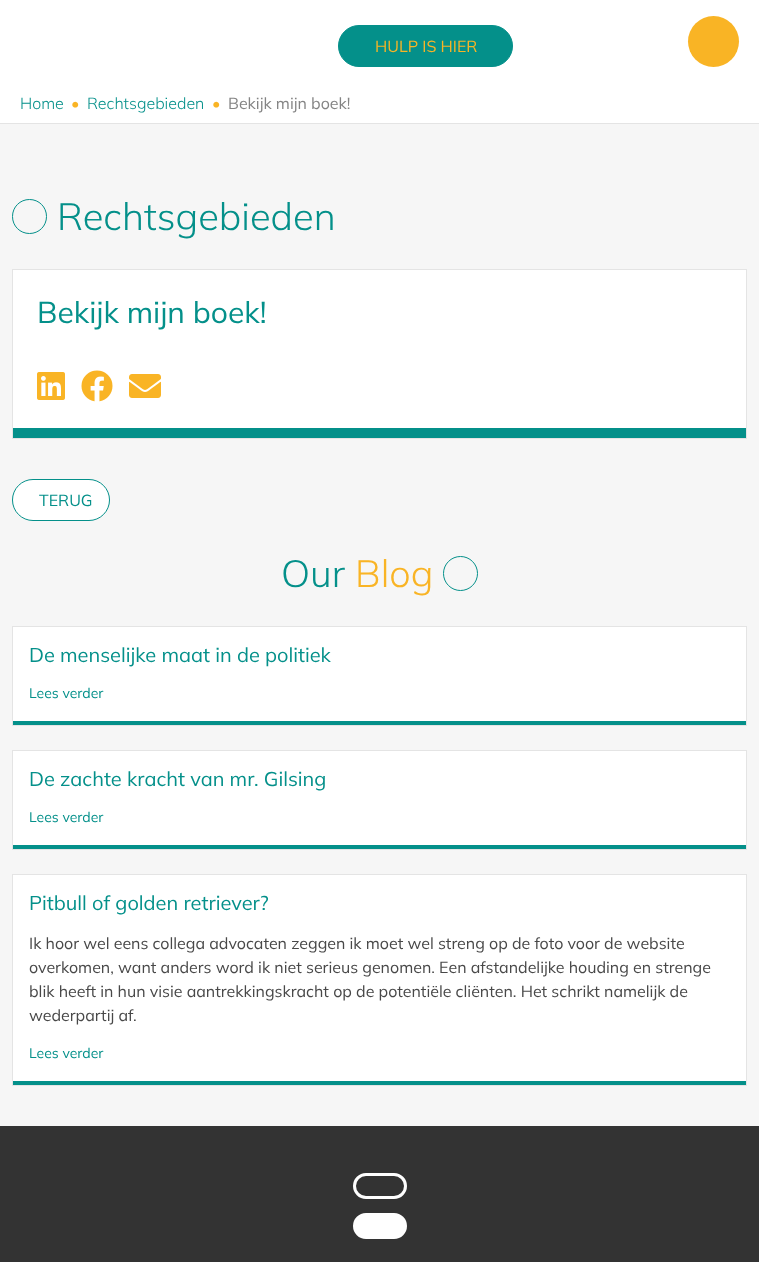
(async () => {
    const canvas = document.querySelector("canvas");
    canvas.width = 759;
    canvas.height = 1262;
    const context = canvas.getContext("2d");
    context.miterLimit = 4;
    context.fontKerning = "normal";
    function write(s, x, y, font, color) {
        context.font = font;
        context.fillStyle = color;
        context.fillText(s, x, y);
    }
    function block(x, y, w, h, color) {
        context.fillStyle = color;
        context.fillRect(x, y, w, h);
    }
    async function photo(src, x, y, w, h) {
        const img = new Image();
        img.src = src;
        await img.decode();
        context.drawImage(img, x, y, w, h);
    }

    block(0, 0, 759, 1262, "rgb(246, 246, 246)");
    block(0, 0, 759, 123, "rgb(255, 255, 255)");
    context.fillStyle = "rgb(4, 144, 138)";
    context.beginPath();
    context.roundRect(338.5, 25.5, 174, 41, 20.5);
    context.fill();
    context.strokeStyle = "rgb(4, 144, 138)";
    context.stroke();
    write("HULP IS HIER", 375, 52, "16px Mulish", "rgb(249, 180, 37)");
    context.beginPath();
    context.arc(713.5, 41.5, 25.5, 0, Math.PI * 2);
    context.fill();
    block(0, 123, 759, 1, "rgb(228, 228, 228)");
    write("Home", 20, 109, "300 16px Mulish", "rgb(4, 144, 138)");
    write("•", 71, 109, "300 16px Mulish", "rgb(249, 180, 37)");
    write("Rechtsgebieden", 87, 109, "300 16px Mulish", "rgb(4, 144, 138)");
    write("•", 212, 109, "300 16px Mulish", "rgb(249, 180, 37)");
    write("Bekijk mijn boek!", 228, 109, "16px Mulish", "rgb(132, 132, 132)");
    context.beginPath();
    context.moveTo(29.5, 233.5);
    context.bezierCurveTo(20, 233.5, 12.5, 226, 12.5, 216.5);
    context.bezierCurveTo(12.5, 207, 20, 199.5, 29.5, 199.5);
    context.bezierCurveTo(39, 199.5, 46.5, 207, 46.5, 216.5);
    context.bezierCurveTo(46.5, 226, 39, 233.5, 29.5, 233.5);
    context.closePath();
    context.stroke();
    write("Rechtsgebieden", 57, 230, "300 38px Mulish", "rgb(4, 144, 138)");
    block(13, 270, 733, 158, "rgb(255, 255, 255)");
    context.strokeStyle = "rgb(228, 228, 228)";
    context.strokeRect(12.5, 269.5, 734, 169);
    block(13, 428, 733, 10, "rgb(4, 144, 138)");
    write("Bekijk mijn boek!", 37, 323, "30px Mulish", "rgb(4, 144, 138)");
    await photo("media/1.png", 37, 372, 28, 28);
    await photo("media/2.png", 81, 370, 32, 32);
    await photo("media/3.png", 129, 374, 32, 24);
    context.fillStyle = "rgb(255, 255, 255)";
    context.beginPath();
    context.roundRect(12.5, 479.5, 97, 41, 20.5);
    context.fill();
    context.strokeStyle = "rgb(4, 144, 138)";
    context.stroke();
    write("TERUG", 39, 506, "16px Mulish", "rgb(4, 144, 138)");
    write("Our", 281, 587, "300 38px Mulish", "rgb(4, 144, 138)");
    write("Blog", 355, 587, "300 38px Mulish", "rgb(249, 180, 37)");
    context.beginPath();
    context.arc(460.5, 573.5, 17, 0, Math.PI * 2);
    context.stroke();
    block(13, 627, 733, 94, "rgb(255, 255, 255)");
    context.strokeStyle = "rgb(228, 228, 228)";
    context.strokeRect(12.5, 626.5, 734, 99);
    block(13, 721, 733, 4, "rgb(4, 144, 138)");
    write("De menselijke maat in de politiek", 29, 662, "20px Mulish", "rgb(4, 144, 138)");
    write("Lees verder", 29, 698, "14px Mulish", "rgb(4, 144, 138)");
    block(13, 751, 733, 94, "rgb(255, 255, 255)");
    context.strokeRect(12.5, 750.5, 734, 99);
    block(13, 845, 733, 4, "rgb(4, 144, 138)");
    write("De zachte kracht van mr. Gilsing", 29, 786, "20px Mulish", "rgb(4, 144, 138)");
    write("Lees verder", 29, 822, "14px Mulish", "rgb(4, 144, 138)");
    block(13, 875, 733, 206, "rgb(255, 255, 255)");
    context.strokeRect(12.5, 874.5, 734, 211);
    block(13, 1081, 733, 4, "rgb(4, 144, 138)");
    write("Pitbull of golden retriever?", 29, 910, "20px Mulish", "rgb(4, 144, 138)");
    write("Ik hoor wel eens collega advocaten zeggen ik moet wel streng op de foto voor de website", 29, 949, "16px Mulish", "rgb(72, 72, 72)");
    write("overkomen, want anders word ik niet serieus genomen. Een afstandelijke houding en strenge", 29, 973, "16px Mulish", "rgb(72, 72, 72)");
    write("blik heeft in hun visie aantrekkingskracht op de potentiële cliënten. Het schrikt namelijk de", 29, 997, "16px Mulish", "rgb(72, 72, 72)");
    write("wederpartij af.", 29, 1021, "16px Mulish", "rgb(72, 72, 72)");
    write("Lees verder", 29, 1058, "14px Mulish", "rgb(4, 144, 138)");
    block(0, 1126, 759, 136, "rgb(51, 51, 51)");
    context.beginPath();
    context.roundRect(354.5, 1174.5, 51, 23, 11.5);
    context.strokeStyle = "rgb(255, 255, 255)";
    context.lineWidth = 3;
    context.stroke();
    context.fillStyle = "rgb(255, 255, 255)";
    context.beginPath();
    context.roundRect(354.5, 1214.5, 51, 23, 11.5);
    context.fill();
    context.stroke();
})();
